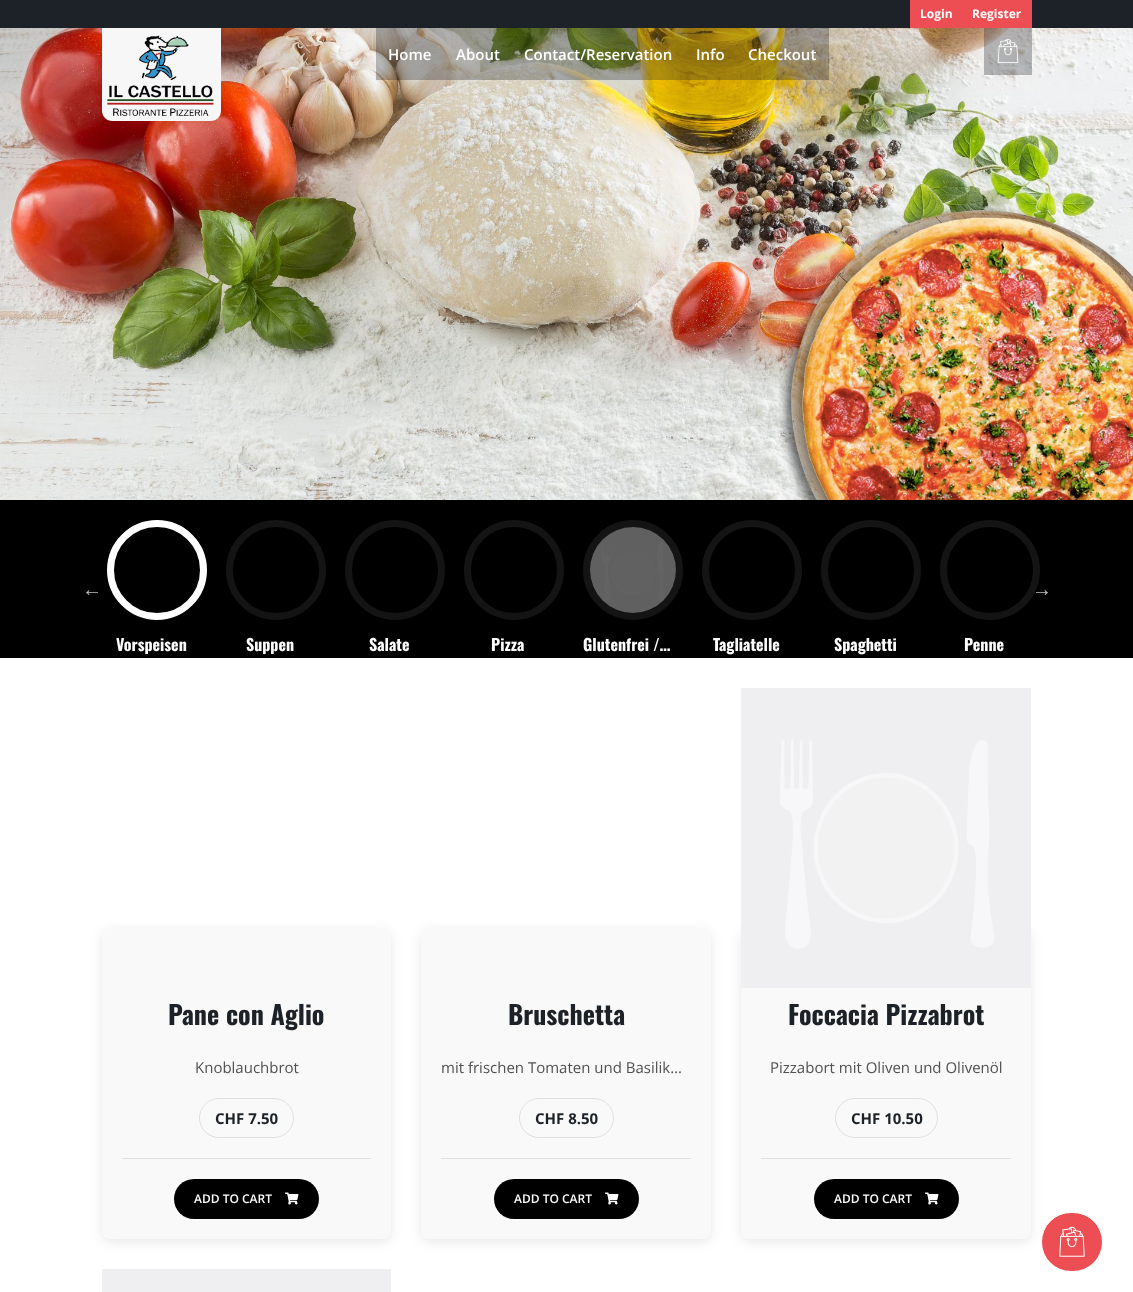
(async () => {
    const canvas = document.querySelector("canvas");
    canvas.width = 1133;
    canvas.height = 1292;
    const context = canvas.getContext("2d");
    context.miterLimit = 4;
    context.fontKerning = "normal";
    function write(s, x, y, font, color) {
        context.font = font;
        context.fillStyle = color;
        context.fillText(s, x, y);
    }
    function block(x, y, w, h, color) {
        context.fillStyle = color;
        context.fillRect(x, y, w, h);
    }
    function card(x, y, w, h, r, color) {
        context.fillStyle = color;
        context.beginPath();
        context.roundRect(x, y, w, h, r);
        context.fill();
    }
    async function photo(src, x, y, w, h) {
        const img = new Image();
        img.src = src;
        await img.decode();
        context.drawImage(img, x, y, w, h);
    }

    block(0, 0, 1133, 1292, "rgb(255, 255, 255)");
    block(0, 0, 1133, 28, "rgb(29, 34, 40)");
    block(910, 0, 122, 28, "rgb(237, 78, 83)");
    write("Login", 920, 18, "bold 12px Open Sans", "rgb(255, 255, 255)");
    write("Register", 972, 18, "bold 12px Open Sans", "rgb(255, 255, 255)");
    await photo("media/3.png", 0, 28, 1133, 472);
    await photo("media/1.png", 102, 28, 119, 93);
    block(376, 28, 68, 52, "rgba(29, 34, 40, 0.3)");
    write("Home", 388, 60, "600 15px Open Sans", "rgb(255, 255, 255)");
    block(444, 28, 68, 52, "rgba(29, 34, 40, 0.3)");
    write("About", 456, 60, "600 15px Open Sans", "rgb(255, 255, 255)");
    block(512, 28, 172, 52, "rgba(29, 34, 40, 0.3)");
    write("Contact/Reservation", 524, 60, "600 15px Open Sans", "rgb(255, 255, 255)");
    block(684, 28, 52, 52, "rgba(29, 34, 40, 0.3)");
    write("Info", 696, 60, "600 15px Open Sans", "rgb(255, 255, 255)");
    block(736, 28, 93, 52, "rgba(29, 34, 40, 0.3)");
    write("Checkout", 748, 60, "600 15px Open Sans", "rgb(255, 255, 255)");
    block(984, 28, 48, 47, "rgba(29, 34, 40, 0.3)");
    await photo("media/2.png", 997, 39, 22, 24);
    block(0, 500, 1133, 158, "rgb(0, 0, 0)");
    write("←", 82, 596, "20px Liberation Serif", "rgb(191, 191, 191)");
    context.beginPath();
    context.arc(990, 570, 46.5, 0, Math.PI * 2);
    context.strokeStyle = "rgb(20, 20, 20)";
    context.lineWidth = 7;
    context.stroke();
    write("→", 1032, 596, "20px Liberation Serif", "rgb(191, 191, 191)");
    context.beginPath();
    context.arc(157, 570, 46.5, 0, Math.PI * 2);
    context.strokeStyle = "rgb(255, 255, 255)";
    context.stroke();
    write("Vorspeisen", 116, 651, "bold 16px Oswald", "rgb(255, 255, 255)");
    context.beginPath();
    context.arc(276, 570, 46.5, 0, Math.PI * 2);
    context.strokeStyle = "rgb(20, 20, 20)";
    context.stroke();
    write("Suppen", 246, 651, "bold 16px Oswald", "rgb(255, 255, 255)");
    context.beginPath();
    context.arc(395, 570, 46.5, 0, Math.PI * 2);
    context.stroke();
    write("Salate", 369, 651, "bold 16px Oswald", "rgb(255, 255, 255)");
    context.beginPath();
    context.arc(514, 570, 46.5, 0, Math.PI * 2);
    context.stroke();
    write("Pizza", 491, 651, "bold 16px Oswald", "rgb(255, 255, 255)");
    context.beginPath();
    context.arc(633, 570, 46.5, 0, Math.PI * 2);
    context.stroke();
    await photo("media/4.png", 590, 527, 86, 86);
    write("Glutenfrei /…", 583, 651, "bold 16px Oswald", "rgb(255, 255, 255)");
    context.beginPath();
    context.arc(752, 570, 46.5, 0, Math.PI * 2);
    context.stroke();
    write("Tagliatelle", 713, 651, "bold 16px Oswald", "rgb(255, 255, 255)");
    context.beginPath();
    context.arc(871, 570, 46.5, 0, Math.PI * 2);
    context.stroke();
    write("Spaghetti", 834, 651, "bold 16px Oswald", "rgb(255, 255, 255)");
    write("Penne", 964, 651, "bold 16px Oswald", "rgb(255, 255, 255)");
    context.fillStyle = "rgba(25, 31, 33, 0.1)";
    context.filter = "blur(6px)";
    context.beginPath();
    context.roundRect(102, 931, 289, 311, 8);
    context.fill();
    context.filter = "none";
    card(102, 928, 289, 311, 8, "rgb(249, 249, 249)");
    write("Pane con Aglio", 168, 1025, "bold 26px Oswald", "rgb(29, 34, 40)");
    write("Knoblauchbrot", 195, 1073, "15px Open Sans", "rgb(81, 81, 81)");
    context.beginPath();
    context.roundRect(199.5, 1098.5, 94, 39, 19.5);
    context.strokeStyle = "rgb(224, 224, 224)";
    context.lineWidth = 1;
    context.stroke();
    write("CHF 7.50", 215, 1124, "bold 15px Open Sans", "rgb(29, 34, 40)");
    block(122, 1158, 249, 1, "rgb(224, 224, 224)");
    card(174, 1179, 145, 40, 20, "rgb(0, 0, 0)");
    write("ADD TO CART", 194, 1203, "600 12px Open Sans", "rgb(255, 255, 255)");
    await photo("media/5.png", 285, 1192, 14, 13);
    context.fillStyle = "rgba(25, 31, 33, 0.1)";
    context.filter = "blur(6px)";
    context.beginPath();
    context.roundRect(421, 931, 290, 311, 8);
    context.fill();
    context.filter = "none";
    card(421, 928, 290, 311, 8, "rgb(249, 249, 249)");
    write("Bruschetta", 508, 1025, "bold 26px Oswald", "rgb(29, 34, 40)");
    write("mit frischen Tomaten und Basilik…", 441, 1073, "15px Open Sans", "rgb(81, 81, 81)");
    context.beginPath();
    context.roundRect(519.5, 1098.5, 94, 39, 19.5);
    context.stroke();
    write("CHF 8.50", 535, 1124, "bold 15px Open Sans", "rgb(29, 34, 40)");
    block(441, 1158, 250, 1, "rgb(224, 224, 224)");
    card(494, 1179, 145, 40, 20, "rgb(0, 0, 0)");
    write("ADD TO CART", 514, 1203, "600 12px Open Sans", "rgb(255, 255, 255)");
    await photo("media/5.png", 605, 1192, 14, 13);
    context.fillStyle = "rgba(25, 31, 33, 0.1)";
    context.filter = "blur(6px)";
    context.beginPath();
    context.roundRect(741, 931, 290, 311, 8);
    context.fill();
    context.filter = "none";
    card(741, 928, 290, 311, 8, "rgb(249, 249, 249)");
    await photo("media/6.png", 741, 688, 290, 300);
    write("Foccacia Pizzabrot", 788, 1025, "bold 26px Oswald", "rgb(29, 34, 40)");
    write("Pizzabort mit Oliven und Olivenöl", 770, 1073, "15px Open Sans", "rgb(81, 81, 81)");
    context.beginPath();
    context.roundRect(835.5, 1098.5, 102, 39, 19.5);
    context.stroke();
    write("CHF 10.50", 851, 1124, "bold 15px Open Sans", "rgb(29, 34, 40)");
    block(761, 1158, 250, 1, "rgb(224, 224, 224)");
    card(814, 1179, 145, 40, 20, "rgb(0, 0, 0)");
    write("ADD TO CART", 834, 1203, "600 12px Open Sans", "rgb(255, 255, 255)");
    await photo("media/5.png", 925, 1192, 14, 13);
    block(102, 1269, 289, 23, "rgb(239, 239, 241)");
    context.fillStyle = "rgb(237, 78, 83)";
    context.beginPath();
    context.roundRect(1041.5, 1212.5, 61, 59, 29.5);
    context.fill();
    context.strokeStyle = "rgb(255, 255, 255)";
    context.stroke();
    await photo("media/7.png", 1059, 1226, 26, 31);
})();
